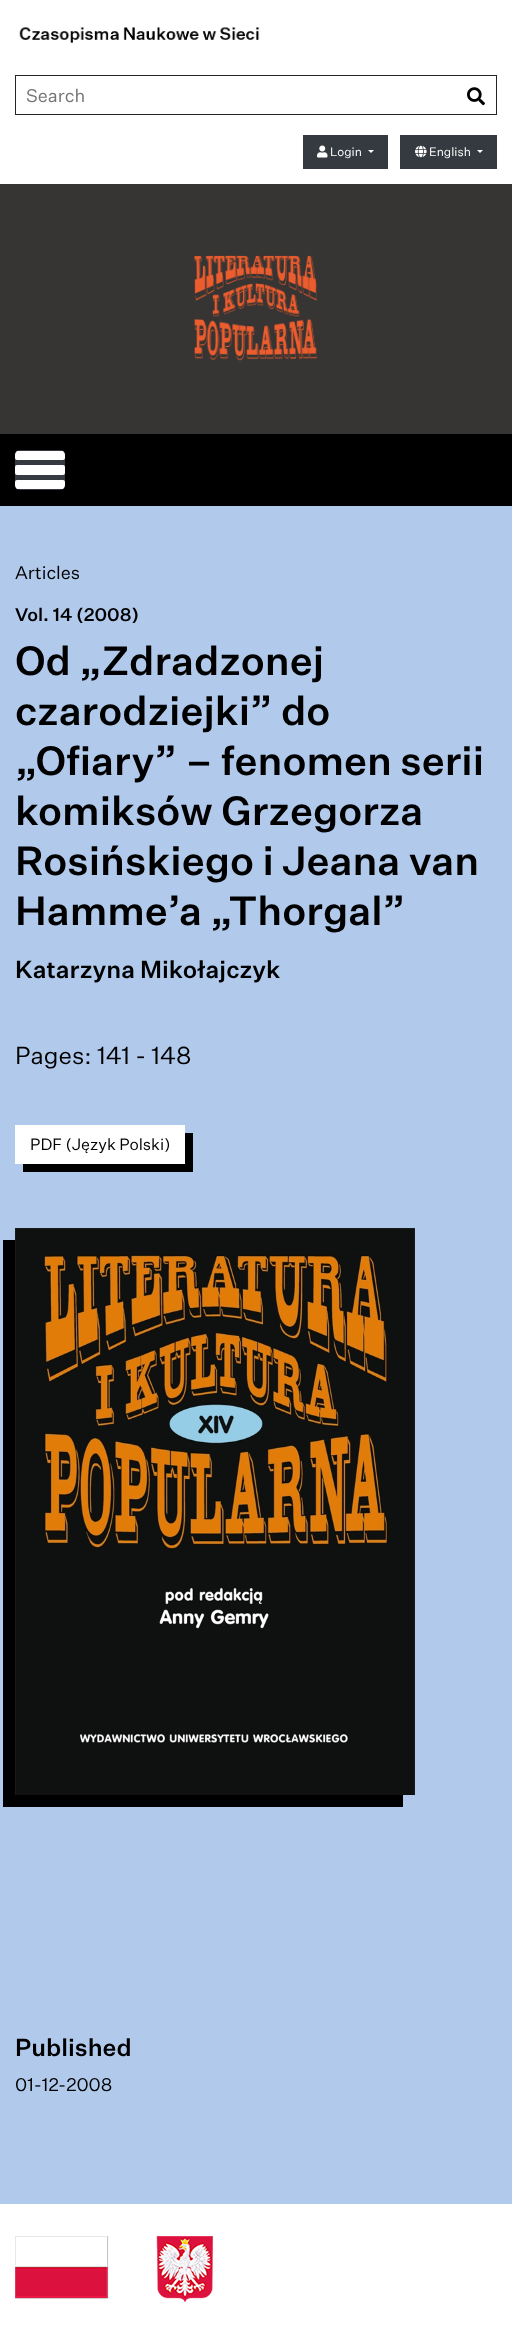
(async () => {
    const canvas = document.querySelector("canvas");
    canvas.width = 512;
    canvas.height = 2329;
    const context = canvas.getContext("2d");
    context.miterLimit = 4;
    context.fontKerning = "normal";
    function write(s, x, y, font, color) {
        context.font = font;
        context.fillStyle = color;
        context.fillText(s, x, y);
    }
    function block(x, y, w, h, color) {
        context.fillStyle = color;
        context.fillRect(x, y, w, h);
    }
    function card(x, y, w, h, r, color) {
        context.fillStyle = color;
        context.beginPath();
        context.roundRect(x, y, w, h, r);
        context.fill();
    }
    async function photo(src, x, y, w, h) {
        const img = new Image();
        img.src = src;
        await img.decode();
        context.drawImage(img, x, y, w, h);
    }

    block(0, 0, 512, 2329, "rgb(177, 201, 235)");
    block(0, 0, 512, 184, "rgb(255, 255, 255)");
    await photo("media/1.png", 19, 27, 241, 16);
    context.strokeStyle = "rgb(34, 37, 42)";
    context.strokeRect(15.5, 75.5, 481, 39);
    write("Search", 26, 102, "18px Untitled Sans", "rgb(117, 117, 117)");
    await photo("media/2.png", 467, 87, 18, 19);
    block(303, 135, 85, 34, "rgb(52, 58, 64)");
    await photo("media/3.png", 317, 145, 11, 13);
    write("Login", 330, 156, "12px Untitled Sans", "rgb(255, 255, 255)");
    context.beginPath();
    context.moveTo(368, 150);
    context.lineTo(374, 150);
    context.lineTo(371, 153);
    context.closePath();
    context.fill();
    block(400, 135, 97, 34, "rgb(52, 58, 64)");
    await photo("media/4.png", 415, 145, 12, 13);
    write("English", 429, 156, "12px Untitled Sans", "rgb(255, 255, 255)");
    context.beginPath();
    context.moveTo(477, 150);
    context.lineTo(483, 150);
    context.lineTo(480, 153);
    context.closePath();
    context.fill();
    block(0, 184, 512, 250, "rgb(54, 53, 52)");
    await photo("media/5.png", 194, 255, 123, 106);
    block(0, 434, 512, 72, "rgb(0, 0, 0)");
    card(15, 450, 50, 40, 5, "rgb(52, 58, 64)");
    card(15, 465, 50, 10, 2, "rgb(255, 255, 255)");
    context.save();
    context.beginPath();
    context.roundRect(15, 450, 50, 40, 5);
    context.clip();
    card(15, 451, 50, 9, 2, "rgb(255, 255, 255)");
    card(15, 480, 50, 9, 2, "rgb(255, 255, 255)");
    context.restore();
    write("Articles", 15, 579, "18px Untitled Sans", "rgb(0, 0, 0)");
    write("Vol. 14 (2008)", 15, 621, "500 18px Untitled Sans", "rgb(0, 0, 0)");
    write("Od „Zdradzonej", 15, 675, "500 40px Untitled Sans", "rgb(0, 0, 0)");
    write("czarodziejki” do", 15, 725, "500 40px Untitled Sans", "rgb(0, 0, 0)");
    write("„Ofiary” – fenomen serii", 15, 775, "500 40px Untitled Sans", "rgb(0, 0, 0)");
    write("komiksów Grzegorza", 15, 825, "500 40px Untitled Sans", "rgb(0, 0, 0)");
    write("Rosińskiego i Jeana van", 15, 875, "500 40px Untitled Sans", "rgb(0, 0, 0)");
    write("Hamme’a „Thorgal”", 15, 925, "500 40px Untitled Sans", "rgb(0, 0, 0)");
    write("Katarzyna Mikołajczyk", 15, 978, "500 24px Untitled Sans", "rgb(0, 0, 0)");
    write("Pages: 141 - 148", 15, 1064, "24px Untitled Sans", "rgb(0, 0, 0)");
    context.beginPath();
    context.moveTo(23, 1164);
    context.lineTo(23, 1172);
    context.lineTo(193, 1172);
    context.lineTo(193, 1133);
    context.lineTo(185, 1133);
    context.lineTo(185, 1164);
    context.closePath();
    context.fill();
    block(15, 1125, 170, 39, "rgb(255, 255, 255)");
    write("PDF (Język Polski)", 30, 1150, "16px Untitled Sans", "rgb(0, 0, 0)");
    context.beginPath();
    context.moveTo(3, 1240);
    context.lineTo(3, 1807);
    context.lineTo(403, 1807);
    context.lineTo(403, 1795);
    context.lineTo(15, 1795);
    context.lineTo(15, 1240);
    context.closePath();
    context.fill();
    await photo("media/6.png", 15, 1228, 400, 567);
    write("Published", 15, 2056, "500 24px Untitled Sans", "rgb(0, 0, 0)");
    write("01-12-2008", 15, 2091, "18px Untitled Sans", "rgb(0, 0, 0)");
    block(0, 2204, 512, 125, "rgb(255, 255, 255)");
    await photo("media/7.png", 15, 2236, 198, 66);
})();
